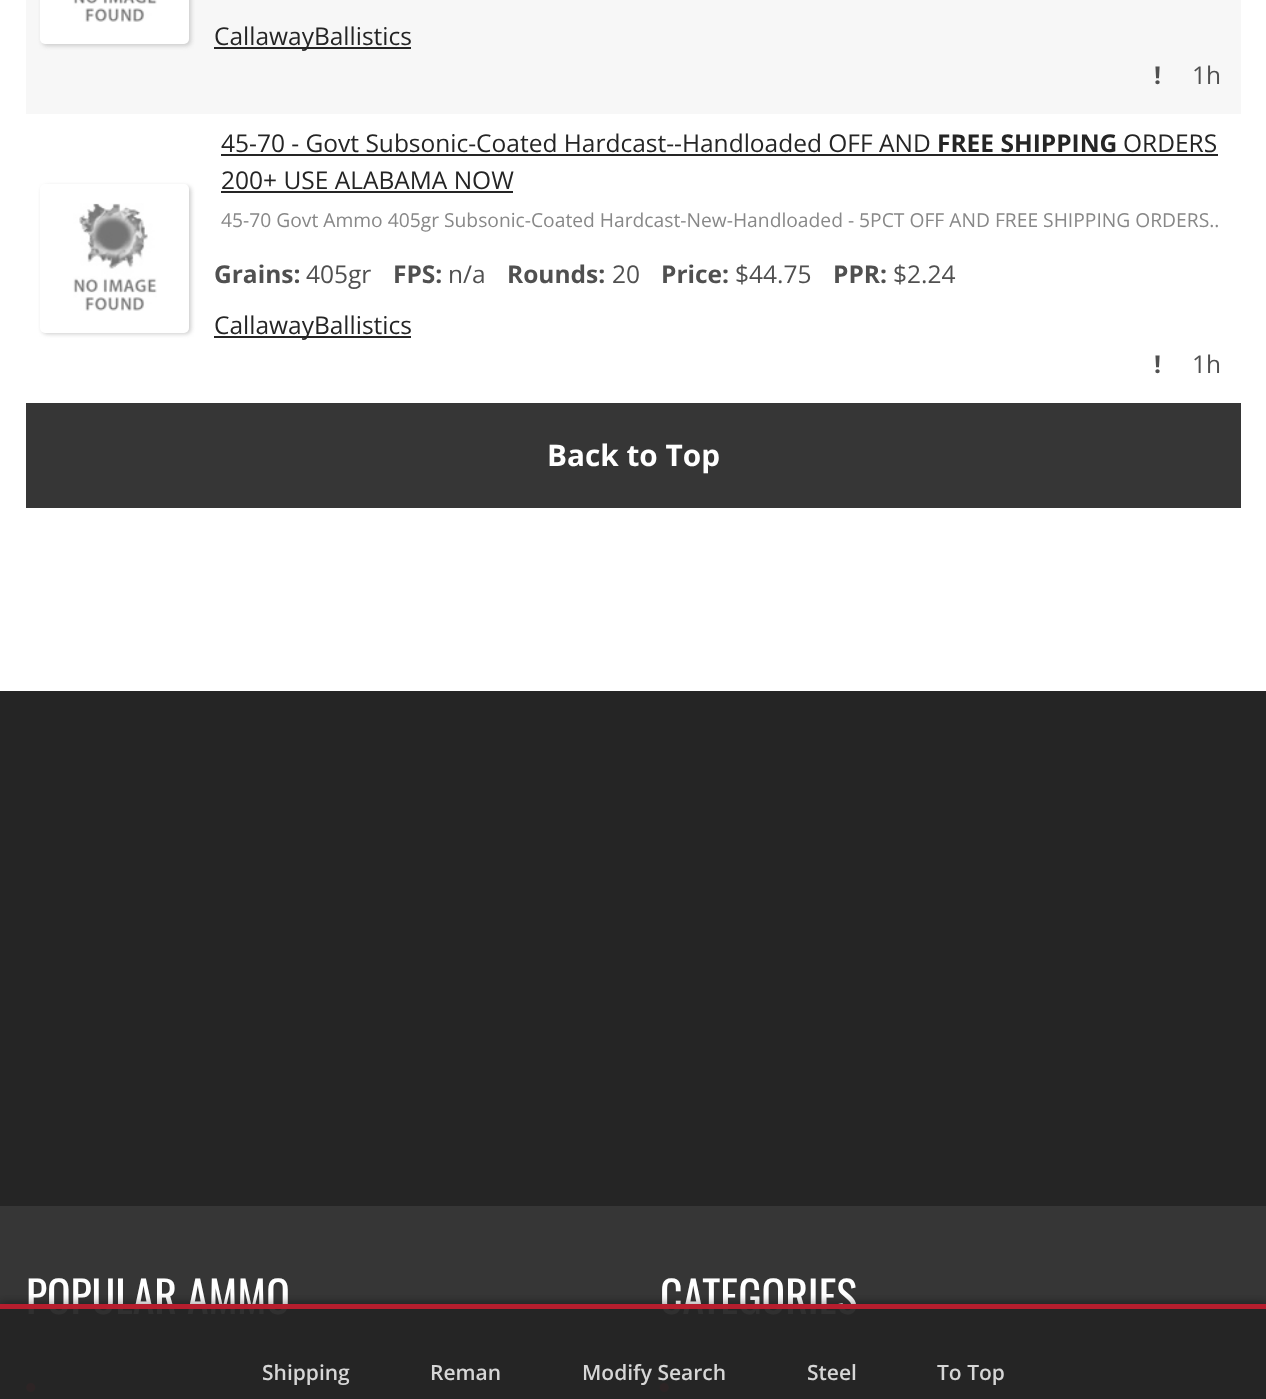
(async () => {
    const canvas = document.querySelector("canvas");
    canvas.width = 1266;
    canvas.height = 1399;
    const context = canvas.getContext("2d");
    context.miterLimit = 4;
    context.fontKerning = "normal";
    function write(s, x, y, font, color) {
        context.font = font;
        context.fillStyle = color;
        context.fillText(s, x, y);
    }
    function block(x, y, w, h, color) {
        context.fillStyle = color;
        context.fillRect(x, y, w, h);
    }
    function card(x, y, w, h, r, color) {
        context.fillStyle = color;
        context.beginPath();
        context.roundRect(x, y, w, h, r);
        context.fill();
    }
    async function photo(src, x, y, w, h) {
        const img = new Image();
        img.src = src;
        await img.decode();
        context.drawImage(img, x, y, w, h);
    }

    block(0, 0, 1266, 1399, "rgb(255, 255, 255)");
    block(26, 0, 1215, 114, "rgb(247, 247, 247)");
    context.fillStyle = "rgb(204, 204, 204)";
    context.filter = "blur(2px)";
    context.beginPath();
    context.roundRect(42, -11, 149, 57, 5);
    context.fill();
    context.filter = "none";
    card(40, -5, 149, 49, 5, "rgb(255, 255, 255)");
    await photo("media/1.png", 73, 0, 84, 22);
    block(214, 47, 197, 2, "rgb(37, 37, 37)");
    write("CallawayBallistics", 214, 45, "24.5px Open Sans", "rgb(37, 37, 37)");
    write("!", 1154, 84, "bold 24.5px Open Sans", "rgb(80, 80, 80)");
    write("1h", 1192, 84, "24.5px Open Sans", "rgb(80, 80, 80)");
    context.fillStyle = "rgb(204, 204, 204)";
    context.filter = "blur(2px)";
    context.beginPath();
    context.roundRect(42, 186, 149, 148, 5);
    context.fill();
    context.filter = "none";
    card(40, 184, 149, 149, 5, "rgb(255, 255, 255)");
    await photo("media/2.png", 73, 203, 84, 108);
    write("45-70 - Govt Subsonic-Coated Hardcast--Handloaded OFF AND", 221, 152, "24.5px Open Sans", "rgb(37, 37, 37)");
    write("FREE SHIPPING", 937, 152, "bold 24.5px Open Sans", "rgb(37, 37, 37)");
    block(221, 154, 997, 2, "rgb(37, 37, 37)");
    write("ORDERS", 1123, 152, "24.5px Open Sans", "rgb(37, 37, 37)");
    write("200+ USE ALABAMA NOW", 221, 189, "24.5px Open Sans", "rgb(37, 37, 37)");
    block(221, 191, 292, 2, "rgb(37, 37, 37)");
    write("45-70 Govt Ammo 405gr Subsonic-Coated Hardcast-New-Handloaded - 5PCT OFF AND FREE SHIPPING ORDERS..", 221, 227, "19.25px Open Sans", "rgb(136, 136, 136)");
    write("Grains:", 214, 283, "bold 24.5px Open Sans", "rgb(80, 80, 80)");
    write("405gr", 306, 283, "24.5px Open Sans", "rgb(80, 80, 80)");
    write("FPS:", 393, 283, "bold 24.5px Open Sans", "rgb(80, 80, 80)");
    write("n/a", 448, 283, "24.5px Open Sans", "rgb(80, 80, 80)");
    write("Rounds:", 507, 283, "bold 24.5px Open Sans", "rgb(80, 80, 80)");
    write("20", 612, 283, "24.5px Open Sans", "rgb(80, 80, 80)");
    write("Price:", 661, 283, "bold 24.5px Open Sans", "rgb(80, 80, 80)");
    write("$44.75", 735, 283, "24.5px Open Sans", "rgb(80, 80, 80)");
    write("PPR:", 833, 283, "bold 24.5px Open Sans", "rgb(80, 80, 80)");
    write("$2.24", 893, 283, "24.5px Open Sans", "rgb(80, 80, 80)");
    block(214, 336, 197, 2, "rgb(37, 37, 37)");
    write("CallawayBallistics", 214, 334, "24.5px Open Sans", "rgb(37, 37, 37)");
    write("!", 1154, 373, "bold 24.5px Open Sans", "rgb(80, 80, 80)");
    write("1h", 1192, 373, "24.5px Open Sans", "rgb(80, 80, 80)");
    block(26, 403, 1215, 105, "rgb(54, 54, 54)");
    write("Back to Top", 547, 466, "bold 29.75px Open Sans", "rgb(255, 255, 255)");
    block(0, 1206, 1266, 193, "rgb(54, 54, 54)");
    block(0, 691, 1266, 515, "rgb(37, 37, 37)");
    write("POPULAR AMMO", 26, 1314, "43.75px Oswald", "rgb(255, 255, 255)");
    await photo("media/3.png", 26, 1383, 10, 9);
    write("CATEGORIES", 660, 1314, "43.75px Oswald", "rgb(255, 255, 255)");
    await photo("media/4.png", 659, 1383, 10, 9);
    context.save();
    context.beginPath();
    context.rect(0, 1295, 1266, 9);
    context.clip();
    context.fillStyle = "rgba(0, 0, 0, 0.33)";
    context.filter = "blur(4.5px)";
    context.beginPath();
    context.rect(0, 1302, 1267, 96);
    context.fill();
    context.filter = "none";
    context.restore();
    block(0, 1304, 1266, 95, "rgba(37, 37, 37, 0.95)");
    block(0, 1304, 1266, 5, "rgba(191, 30, 46, 0.95)");
    write("Shipping", 262, 1380, "600 21px Open Sans", "rgb(214, 214, 214)");
    write("Reman", 430, 1380, "600 21px Open Sans", "rgb(214, 214, 214)");
    write("Modify Search", 582, 1380, "600 21px Open Sans", "rgb(214, 214, 214)");
    write("Steel", 807, 1380, "600 21px Open Sans", "rgb(214, 214, 214)");
    write("To Top", 937, 1380, "600 21px Open Sans", "rgb(214, 214, 214)");
})();
